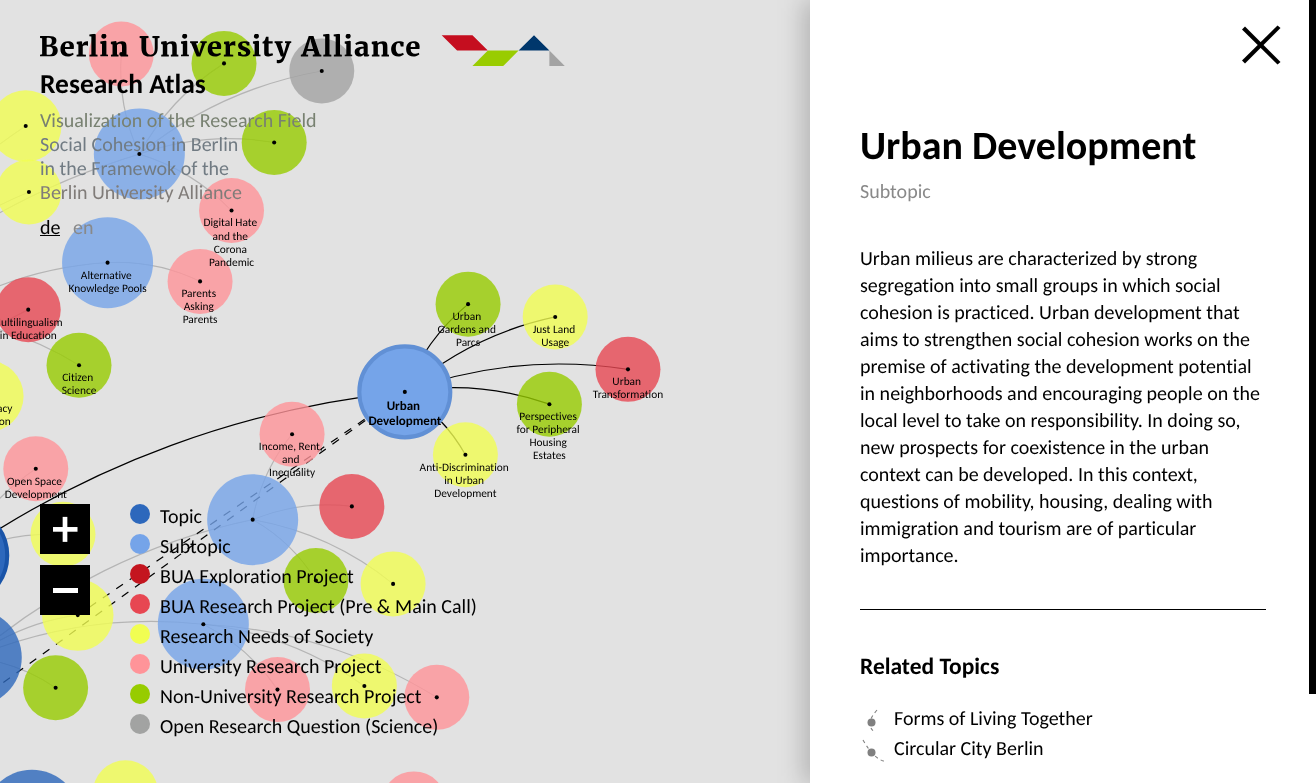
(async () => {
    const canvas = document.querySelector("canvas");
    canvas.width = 1316;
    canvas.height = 783;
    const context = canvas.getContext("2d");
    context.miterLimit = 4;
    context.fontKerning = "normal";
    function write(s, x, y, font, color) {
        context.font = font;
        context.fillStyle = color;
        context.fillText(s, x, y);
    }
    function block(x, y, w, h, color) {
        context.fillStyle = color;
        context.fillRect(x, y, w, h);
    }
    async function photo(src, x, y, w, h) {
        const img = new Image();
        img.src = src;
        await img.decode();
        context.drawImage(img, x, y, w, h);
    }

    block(0, 0, 1316, 783, "rgb(226, 226, 226)");
    await photo("media/2.png", 0, 21, 663, 762);
    await photo("media/1.png", 40, 33, 525, 33);
    write("Research Atlas", 40, 93, "bold 27.5px Carlito", "rgb(0, 0, 0)");
    write("Visualization of the Research Field", 40, 127, "20px Carlito", "rgb(120, 129, 113)");
    write("Social Cohesion in Berlin", 40, 151, "20px Carlito", "rgb(113, 123, 131)");
    write("in the Framewok of the", 40, 175, "20px Carlito", "rgb(113, 123, 131)");
    write("Berlin University Alliance", 40, 199, "20px Carlito", "rgb(128, 124, 121)");
    write("de", 40, 234, "20px Carlito", "rgb(0, 0, 0)");
    block(40, 235, 20, 1, "rgb(0, 0, 0)");
    write("en", 73, 234, "20px Carlito", "rgb(137, 137, 137)");
    context.fillStyle = "rgba(0, 0, 0, 0.2)";
    context.filter = "blur(12.5px)";
    context.beginPath();
    context.rect(803, 0, 506, 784);
    context.fill();
    context.filter = "none";
    block(810, 0, 506, 783, "rgb(255, 255, 255)");
    context.fillStyle = "rgb(0, 0, 0)";
    context.beginPath();
    context.moveTo(1245, 26.5);
    context.lineTo(1280.5, 62);
    context.lineTo(1277.5, 64.5);
    context.lineTo(1242, 29.5);
    context.closePath();
    context.fill();
    context.beginPath();
    context.moveTo(1242, 60.5);
    context.lineTo(1277.5, 25.5);
    context.lineTo(1280.5, 28);
    context.lineTo(1245, 63.5);
    context.closePath();
    context.fill();
    write("Urban Development", 860, 159, "bold 40px Carlito", "rgb(0, 0, 0)");
    write("Subtopic", 860, 198, "20px Carlito", "rgb(137, 137, 137)");
    write("Urban milieus are characterized by strong", 860, 265, "20px Carlito", "rgb(0, 0, 0)");
    write("segregation into small groups in which social", 860, 292, "20px Carlito", "rgb(0, 0, 0)");
    write("cohesion is practiced. Urban development that", 860, 319, "20px Carlito", "rgb(0, 0, 0)");
    write("aims to strengthen social cohesion works on the", 860, 346, "20px Carlito", "rgb(0, 0, 0)");
    write("premise of activating the development potential", 860, 373, "20px Carlito", "rgb(0, 0, 0)");
    write("in neighborhoods and encouraging people on the", 860, 400, "20px Carlito", "rgb(0, 0, 0)");
    write("local level to take on responsibility. In doing so,", 860, 427, "20px Carlito", "rgb(0, 0, 0)");
    write("new prospects for coexistence in the urban", 860, 454, "20px Carlito", "rgb(0, 0, 0)");
    write("context can be developed. In this context,", 860, 481, "20px Carlito", "rgb(0, 0, 0)");
    write("questions of mobility, housing, dealing with", 860, 508, "20px Carlito", "rgb(0, 0, 0)");
    write("immigration and tourism are of particular", 860, 535, "20px Carlito", "rgb(0, 0, 0)");
    write("importance.", 860, 562, "20px Carlito", "rgb(0, 0, 0)");
    block(860, 609, 406, 1, "rgb(0, 0, 0)");
    write("Related Topics", 860, 674, "bold 23.5px Carlito", "rgb(0, 0, 0)");
    context.fillStyle = "rgb(128, 128, 128)";
    context.beginPath();
    context.arc(871.5, 722.5, 4, 0, Math.PI * 2);
    context.fill();
    context.beginPath();
    context.moveTo(877, 710);
    context.bezierCurveTo(868.5, 719.5, 867.5, 727, 875, 732.5);
    context.strokeStyle = "rgb(128, 128, 128)";
    context.lineWidth = 1.1;
    context.setLineDash([3.36, 3.36]);
    context.stroke();
    write("Forms of Living Together", 894, 725, "20px Carlito", "rgb(0, 0, 0)");
    context.fillStyle = "rgb(128, 128, 128)";
    context.beginPath();
    context.arc(871.5, 752.5, 4, 0, Math.PI * 2);
    context.fill();
    context.beginPath();
    context.moveTo(863, 740);
    context.bezierCurveTo(870, 752.5, 877, 759.5, 885, 761.5);
    context.stroke();
    write("Circular City Berlin", 894, 755, "20px Carlito", "rgb(0, 0, 0)");
    block(1309, 0, 7, 694, "rgb(0, 0, 0)");
    block(40, 504, 50, 50, "rgb(0, 0, 0)");
    await photo("media/3.png", 53, 516, 25, 26);
    block(40, 565, 50, 50, "rgb(0, 0, 0)");
    block(53, 588, 25, 5, "rgb(255, 255, 255)");
    context.fillStyle = "rgb(45, 104, 188)";
    context.beginPath();
    context.arc(140, 514, 8.5, 0, Math.PI * 2);
    context.fill();
    context.strokeStyle = "rgb(45, 104, 188)";
    context.lineWidth = 3;
    context.setLineDash([]);
    context.stroke();
    write("Topic", 160, 523, "20px Carlito", "rgb(0, 0, 0)");
    context.fillStyle = "rgb(117, 164, 233)";
    context.beginPath();
    context.arc(140, 544, 8.5, 0, Math.PI * 2);
    context.fill();
    context.strokeStyle = "rgb(117, 164, 233)";
    context.stroke();
    write("Subtopic", 160, 553, "20px Carlito", "rgb(0, 0, 0)");
    context.fillStyle = "rgb(196, 21, 31)";
    context.beginPath();
    context.arc(140, 574, 8.5, 0, Math.PI * 2);
    context.fill();
    context.strokeStyle = "rgb(196, 21, 31)";
    context.stroke();
    write("BUA Exploration Project", 160, 583, "20px Carlito", "rgb(0, 0, 0)");
    context.fillStyle = "rgb(231, 71, 82)";
    context.beginPath();
    context.arc(140, 604, 8.5, 0, Math.PI * 2);
    context.fill();
    context.strokeStyle = "rgb(231, 71, 82)";
    context.stroke();
    write("BUA Research Project (Pre & Main Call)", 160, 613, "20px Carlito", "rgb(0, 0, 0)");
    context.fillStyle = "rgb(241, 254, 82)";
    context.beginPath();
    context.arc(140, 634, 8.5, 0, Math.PI * 2);
    context.fill();
    context.strokeStyle = "rgb(241, 254, 82)";
    context.stroke();
    write("Research Needs of Society", 160, 643, "20px Carlito", "rgb(0, 0, 0)");
    context.fillStyle = "rgb(255, 148, 153)";
    context.beginPath();
    context.arc(140, 664, 8.5, 0, Math.PI * 2);
    context.fill();
    context.strokeStyle = "rgb(255, 148, 153)";
    context.stroke();
    write("University Research Project", 160, 673, "20px Carlito", "rgb(0, 0, 0)");
    context.fillStyle = "rgb(151, 204, 0)";
    context.beginPath();
    context.arc(140, 694, 8.5, 0, Math.PI * 2);
    context.fill();
    context.strokeStyle = "rgb(151, 204, 0)";
    context.stroke();
    write("Non-University Research Project", 160, 703, "20px Carlito", "rgb(0, 0, 0)");
    context.fillStyle = "rgb(162, 163, 162)";
    context.beginPath();
    context.arc(140, 724, 8.5, 0, Math.PI * 2);
    context.fill();
    context.strokeStyle = "rgb(162, 163, 162)";
    context.stroke();
    write("Open Research Question (Science)", 160, 733, "20px Carlito", "rgb(0, 0, 0)");
})();
